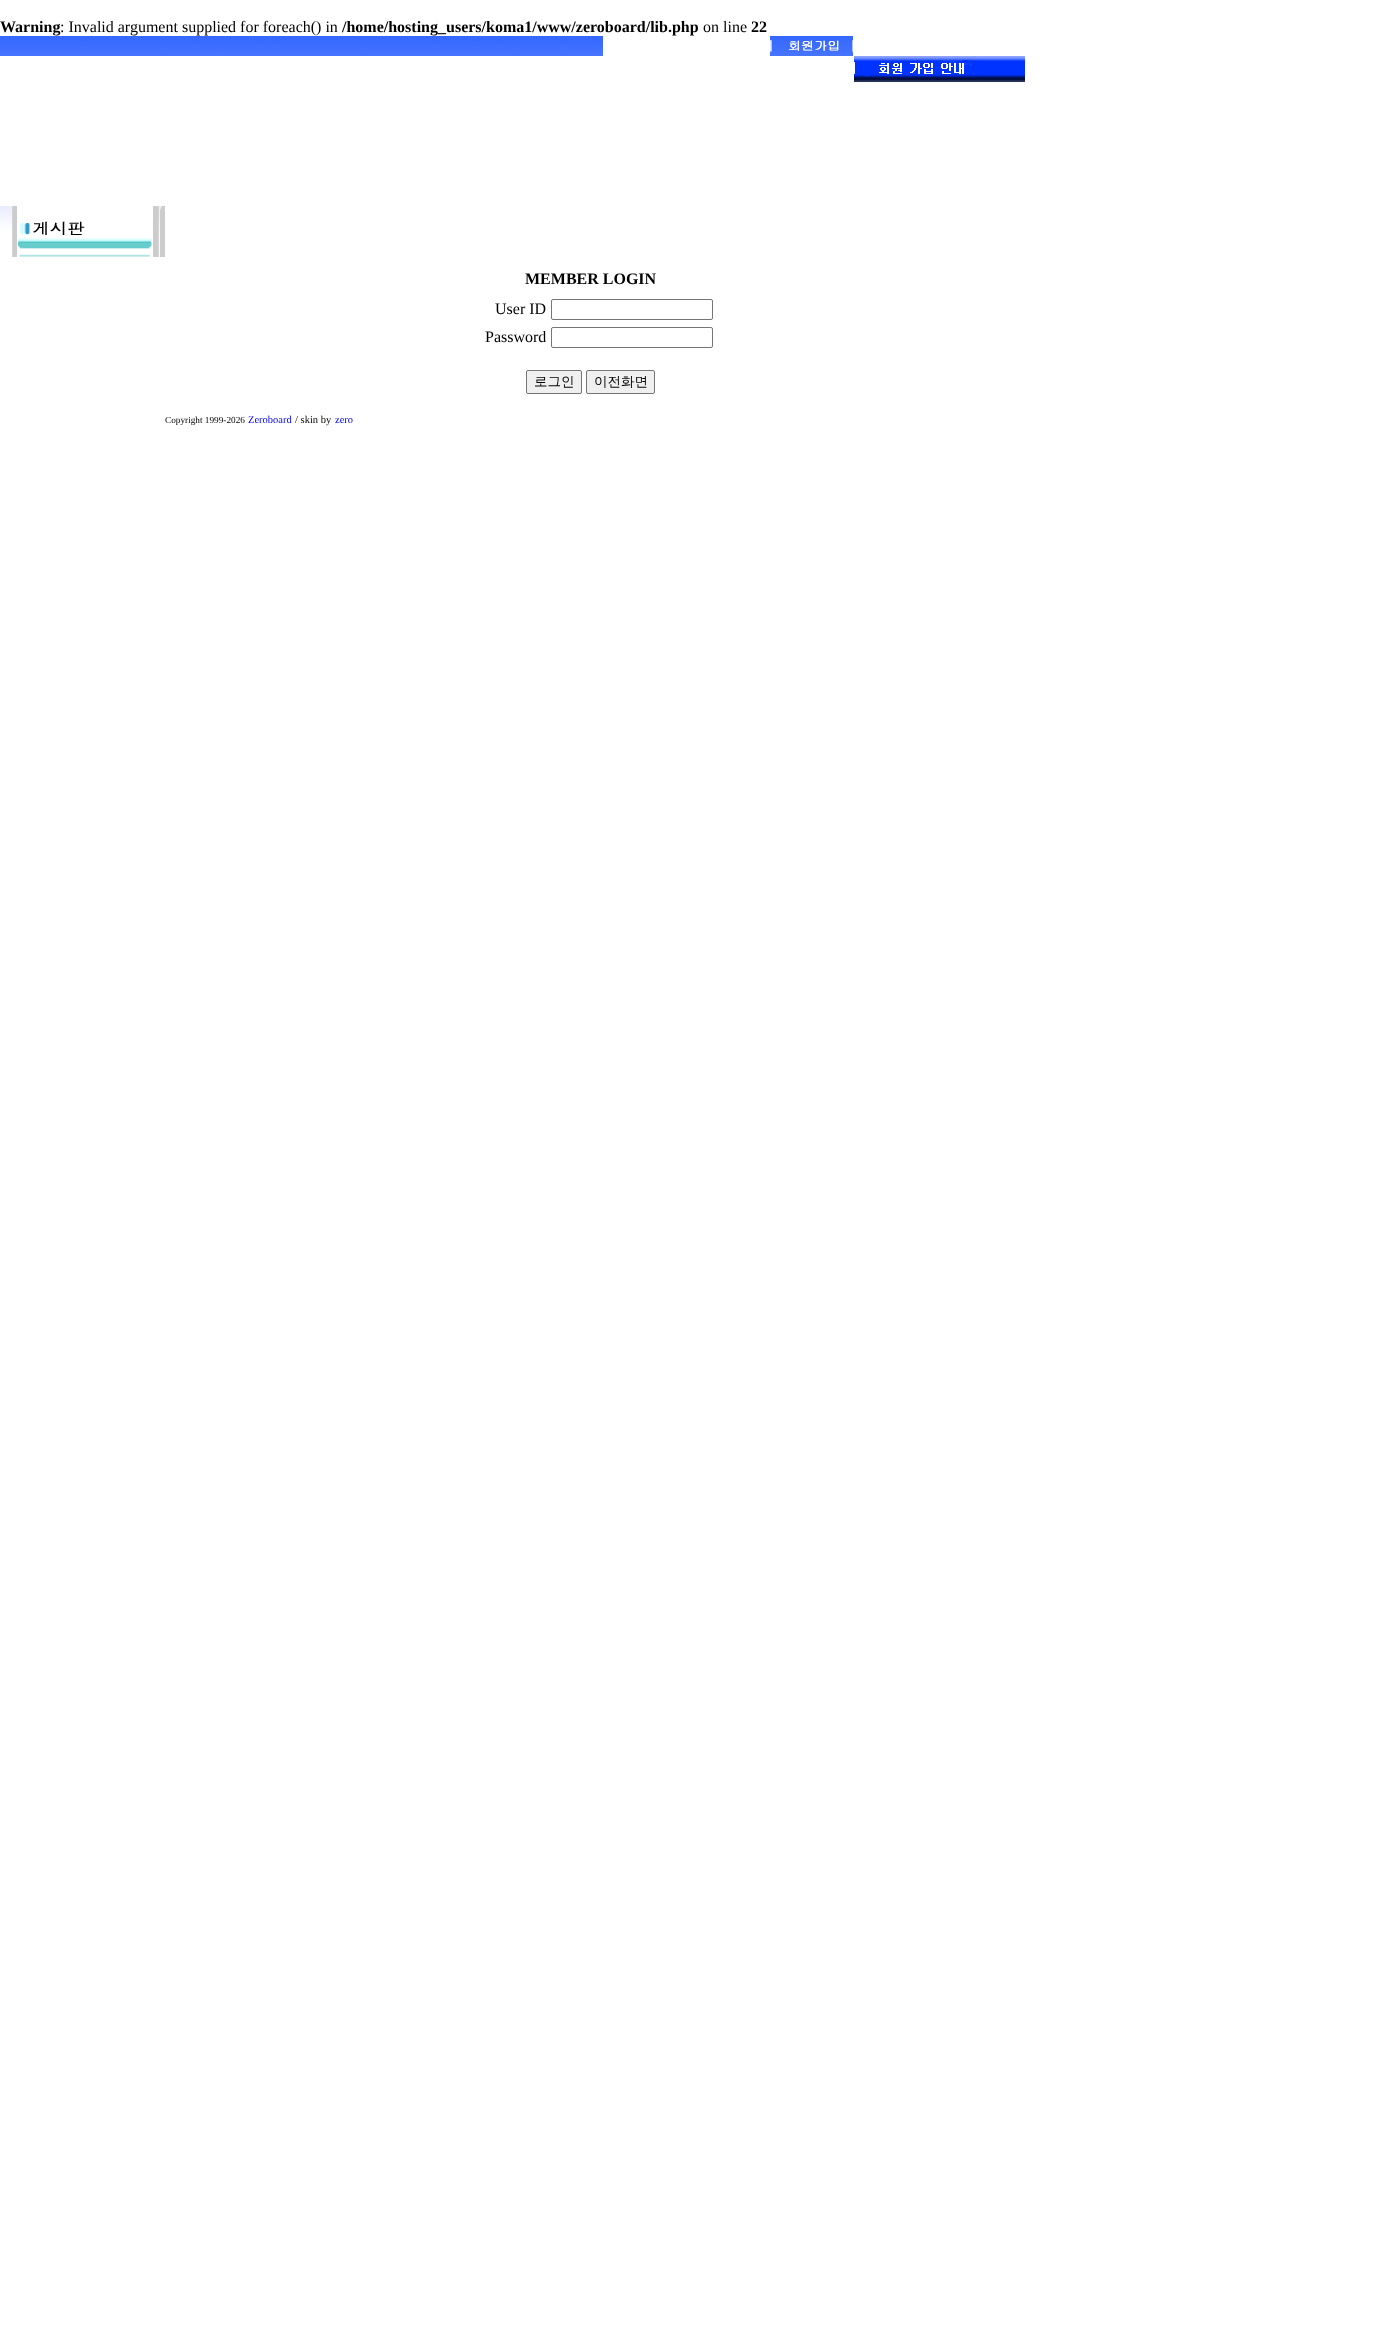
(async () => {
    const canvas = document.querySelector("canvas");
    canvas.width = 1373;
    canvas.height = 2344;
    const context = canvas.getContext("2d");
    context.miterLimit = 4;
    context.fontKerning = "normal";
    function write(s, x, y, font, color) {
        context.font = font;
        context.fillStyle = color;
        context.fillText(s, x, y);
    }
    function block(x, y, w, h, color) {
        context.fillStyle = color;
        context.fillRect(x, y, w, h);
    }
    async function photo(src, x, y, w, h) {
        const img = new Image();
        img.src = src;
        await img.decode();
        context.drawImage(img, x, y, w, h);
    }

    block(0, 0, 1373, 2344, "rgb(255, 255, 255)");
    write("Warning", 0, 32, "bold 16px Liberation Serif", "rgb(0, 0, 0)");
    write(": Invalid argument supplied for foreach() in", 60, 32, "16px Liberation Serif", "rgb(0, 0, 0)");
    write("/home/hosting_users/koma1/www/zeroboard/lib.php", 342, 32, "bold 16px Liberation Serif", "rgb(0, 0, 0)");
    write("on line", 703, 32, "16px Liberation Serif", "rgb(0, 0, 0)");
    write("22", 751, 32, "bold 16px Liberation Serif", "rgb(0, 0, 0)");
    await photo("media/1.png", 0, 36, 603, 20);
    await photo("media/2.png", 770, 36, 83, 20);
    await photo("media/3.png", 854, 56, 171, 26);
    await photo("media/4.png", 0, 206, 165, 51);
    write("MEMBER LOGIN", 525, 284, "bold 16px Liberation Serif", "rgb(0, 0, 0)");
    write("User ID", 495, 314, "16px Liberation Serif", "rgb(0, 0, 0)");
    context.beginPath();
    context.roundRect(551.5, 299.5, 161, 20, 1.5);
    context.strokeStyle = "rgb(118, 118, 118)";
    context.stroke();
    write("Password", 485, 342, "16px Liberation Serif", "rgb(0, 0, 0)");
    context.beginPath();
    context.roundRect(551.5, 327.5, 161, 20, 1.5);
    context.stroke();
    context.fillStyle = "rgb(239, 239, 239)";
    context.beginPath();
    context.roundRect(526.5, 370.5, 55, 23, 1.5);
    context.fill();
    context.stroke();
    write("로그인", 534, 386, "500 13.5px WenQuanYi Zen Hei", "rgb(0, 0, 0)");
    context.fillStyle = "rgb(239, 239, 239)";
    context.beginPath();
    context.roundRect(586.5, 370.5, 68, 23, 1.5);
    context.fill();
    context.stroke();
    write("이전화면", 594, 386, "500 13.5px WenQuanYi Zen Hei", "rgb(0, 0, 0)");
    write("Copyright 1999-2026", 165, 423, "9.25px Liberation Serif", "rgb(0, 0, 0)");
    write("Zeroboard", 248, 423, "10.5px Liberation Serif", "rgb(0, 0, 238)");
    write("/ skin by", 295, 423, "10.5px Liberation Serif", "rgb(0, 0, 0)");
    write("zero", 335, 423, "10.5px Liberation Serif", "rgb(0, 0, 238)");
})();
